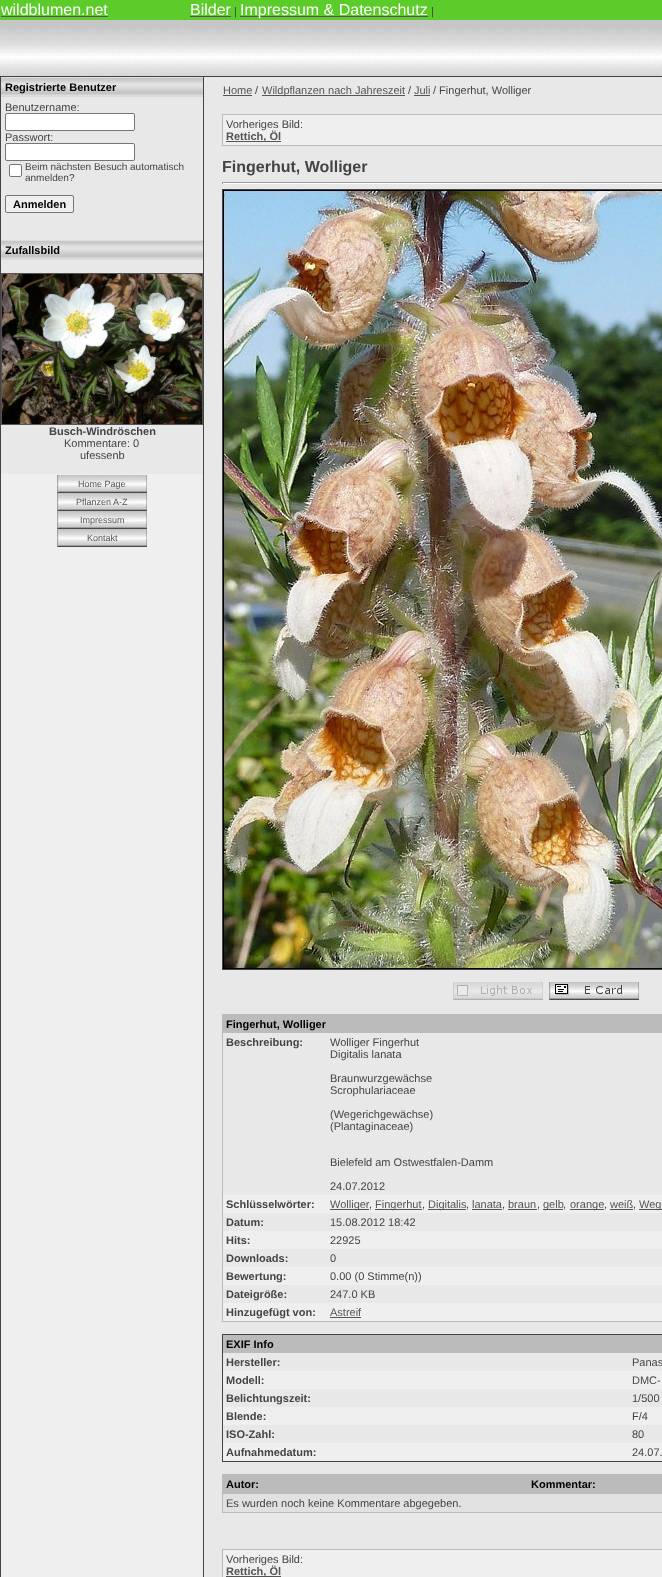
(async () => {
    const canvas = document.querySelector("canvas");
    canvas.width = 662;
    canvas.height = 1577;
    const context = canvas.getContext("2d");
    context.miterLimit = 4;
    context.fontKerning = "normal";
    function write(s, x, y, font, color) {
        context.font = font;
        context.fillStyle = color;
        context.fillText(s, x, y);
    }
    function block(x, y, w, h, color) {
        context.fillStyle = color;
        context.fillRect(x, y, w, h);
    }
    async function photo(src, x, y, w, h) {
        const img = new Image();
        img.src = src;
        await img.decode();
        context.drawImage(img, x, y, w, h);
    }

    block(0, 0, 662, 1577, "rgb(92, 204, 43)");
    write("wildblumen.net", 1, 15, "16px Liberation Sans", "rgb(255, 255, 255)");
    block(1, 16, 107, 1, "rgb(85, 85, 85)");
    write("Bilder", 190, 15, "16px Liberation Sans", "rgb(255, 255, 255)");
    block(190, 16, 41, 1, "rgb(85, 85, 85)");
    write("|", 234, 15, "11px Liberation Sans", "rgb(68, 68, 68)");
    block(240, 16, 188, 1, "rgb(85, 85, 85)");
    write("Impressum & Datenschutz", 240, 15, "16px Liberation Sans", "rgb(255, 255, 255)");
    write("|", 431, 15, "11px Liberation Sans", "rgb(68, 68, 68)");
    await photo("media/1.png", 0, 20, 550, 56);
    await photo("media/2.png", 550, 20, 112, 56);
    block(0, 76, 662, 1501, "rgb(68, 68, 68)");
    block(204, 77, 458, 1500, "rgb(232, 232, 232)");
    block(1, 474, 202, 1103, "rgb(239, 239, 239)");
    await photo("media/3.png", 1, 77, 202, 20);
    write("Registrierte Benutzer", 5, 91, "bold 11px Liberation Sans", "rgb(0, 0, 0)");
    block(1, 97, 202, 143, "rgb(232, 232, 232)");
    write("Benutzername:", 5, 111, "11px Liberation Sans", "rgb(68, 68, 68)");
    context.fillStyle = "rgb(255, 255, 255)";
    context.beginPath();
    context.roundRect(5.5, 113.5, 129, 17, 1.5);
    context.fill();
    context.strokeStyle = "rgb(118, 118, 118)";
    context.stroke();
    write("Passwort:", 5, 141, "11px Liberation Sans", "rgb(68, 68, 68)");
    context.fillStyle = "rgb(255, 255, 255)";
    context.beginPath();
    context.roundRect(5.5, 143.5, 129, 17, 1.5);
    context.fill();
    context.stroke();
    context.beginPath();
    context.roundRect(9.5, 164.5, 12, 12, 1.5);
    context.fill();
    context.stroke();
    write("Beim nächsten Besuch automatisch", 25, 170, "10px Liberation Sans", "rgb(68, 68, 68)");
    write("anmelden?", 25, 181, "10px Liberation Sans", "rgb(68, 68, 68)");
    context.fillStyle = "rgb(239, 239, 239)";
    context.beginPath();
    context.roundRect(5.5, 195.5, 68, 17, 1.5);
    context.fill();
    context.stroke();
    write("Anmelden", 13, 208, "bold 11px Liberation Sans", "rgb(0, 0, 0)");
    await photo("media/3.png", 1, 240, 202, 20);
    write("Zufallsbild", 5, 254, "bold 11px Liberation Sans", "rgb(0, 0, 0)");
    block(1, 260, 202, 214, "rgb(232, 232, 232)");
    context.strokeStyle = "rgb(85, 85, 85)";
    context.strokeRect(1.5, 273.5, 201, 151);
    await photo("media/4.png", 2, 274, 200, 150);
    write("Busch-Windröschen", 49, 435, "bold 11px Liberation Sans", "rgb(68, 68, 68)");
    write("Kommentare: 0", 64, 447, "11px Liberation Sans", "rgb(68, 68, 68)");
    write("ufessenb", 80, 459, "11px Liberation Sans", "rgb(68, 68, 68)");
    await photo("media/5.png", 57, 475, 90, 18);
    write("Home Page", 78, 487, "9px Liberation Sans", "rgb(85, 85, 85)");
    await photo("media/5.png", 57, 493, 90, 18);
    write("Pflanzen A-Z", 76, 505, "9px Liberation Sans", "rgb(85, 85, 85)");
    await photo("media/5.png", 57, 511, 90, 18);
    write("Impressum", 80, 523, "9px Liberation Sans", "rgb(85, 85, 85)");
    await photo("media/5.png", 57, 529, 90, 18);
    write("Kontakt", 87, 541, "9px Liberation Sans", "rgb(85, 85, 85)");
    write("Home", 223, 94, "11px Liberation Sans", "rgb(85, 85, 85)");
    block(223, 95, 29, 1, "rgb(85, 85, 85)");
    write("/", 255, 94, "11px Liberation Sans", "rgb(68, 68, 68)");
    block(262, 95, 143, 1, "rgb(85, 85, 85)");
    write("Wildpflanzen nach Jahreszeit", 262, 94, "11px Liberation Sans", "rgb(85, 85, 85)");
    write("/", 408, 94, "11px Liberation Sans", "rgb(68, 68, 68)");
    write("Juli", 414, 94, "11px Liberation Sans", "rgb(85, 85, 85)");
    block(414, 95, 16, 1, "rgb(85, 85, 85)");
    write("/ Fingerhut, Wolliger", 433, 94, "11px Liberation Sans", "rgb(68, 68, 68)");
    block(222, 114, 440, 32, "rgb(187, 187, 187)");
    block(223, 115, 439, 30, "rgb(239, 239, 239)");
    write("Vorheriges Bild:", 226, 128, "11px Liberation Sans", "rgb(68, 68, 68)");
    block(226, 141, 55, 1, "rgb(85, 85, 85)");
    write("Rettich, Öl", 226, 140, "bold 11px Liberation Sans", "rgb(85, 85, 85)");
    write("Fingerhut, Wolliger", 222, 172, "bold 16px Liberation Sans", "rgb(68, 68, 68)");
    block(222, 183, 440, 1, "rgb(255, 255, 255)");
    block(222, 182, 440, 1, "rgb(159, 159, 159)");
    block(222, 182, 1, 2, "rgb(159, 159, 159)");
    context.strokeStyle = "rgb(68, 68, 68)";
    context.strokeRect(222.5, 189.5, 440, 780);
    await photo("media/6.png", 223, 190, 439, 779);
    await photo("media/7.png", 453, 982, 90, 18);
    await photo("media/8.png", 549, 982, 90, 18);
    block(222, 1014, 440, 308, "rgb(187, 187, 187)");
    write("Fingerhut, Wolliger", 226, 1028, "bold 11px Liberation Sans", "rgb(0, 0, 0)");
    block(223, 1033, 439, 162, "rgb(232, 232, 232)");
    write("Beschreibung:", 226, 1046, "bold 11px Liberation Sans", "rgb(68, 68, 68)");
    write("Wolliger Fingerhut", 330, 1046, "11px Liberation Sans", "rgb(68, 68, 68)");
    write("Digitalis lanata", 330, 1058, "11px Liberation Sans", "rgb(68, 68, 68)");
    write("Braunwurzgewächse", 330, 1082, "11px Liberation Sans", "rgb(68, 68, 68)");
    write("Scrophulariaceae", 330, 1094, "11px Liberation Sans", "rgb(68, 68, 68)");
    write("(Wegerichgewächse)", 330, 1118, "11px Liberation Sans", "rgb(68, 68, 68)");
    write("(Plantaginaceae)", 330, 1130, "11px Liberation Sans", "rgb(68, 68, 68)");
    write("Bielefeld am Ostwestfalen-Damm", 330, 1166, "11px Liberation Sans", "rgb(68, 68, 68)");
    write("24.07.2012", 330, 1190, "11px Liberation Sans", "rgb(68, 68, 68)");
    block(223, 1195, 439, 18, "rgb(239, 239, 239)");
    write("Schlüsselwörter:", 226, 1208, "bold 11px Liberation Sans", "rgb(68, 68, 68)");
    block(330, 1209, 39, 1, "rgb(85, 85, 85)");
    write("Wolliger", 330, 1208, "11px Liberation Sans", "rgb(85, 85, 85)");
    block(375, 1209, 47, 1, "rgb(85, 85, 85)");
    write("Fingerhut", 375, 1208, "11px Liberation Sans", "rgb(85, 85, 85)");
    block(428, 1209, 38, 1, "rgb(85, 85, 85)");
    write("Digitalis", 428, 1208, "11px Liberation Sans", "rgb(85, 85, 85)");
    write("lanata", 472, 1208, "11px Liberation Sans", "rgb(85, 85, 85)");
    block(472, 1209, 30, 1, "rgb(85, 85, 85)");
    write("braun", 508, 1208, "11px Liberation Sans", "rgb(85, 85, 85)");
    block(508, 1209, 29, 1, "rgb(85, 85, 85)");
    block(543, 1209, 20, 1, "rgb(85, 85, 85)");
    write("gelb", 543, 1208, "11px Liberation Sans", "rgb(85, 85, 85)");
    block(570, 1209, 34, 1, "rgb(85, 85, 85)");
    write("orange", 570, 1208, "11px Liberation Sans", "rgb(85, 85, 85)");
    write("weiß", 610, 1208, "11px Liberation Sans", "rgb(85, 85, 85)");
    block(610, 1209, 23, 1, "rgb(85, 85, 85)");
    block(639, 1209, 23, 1, "rgb(85, 85, 85)");
    write("Weg", 639, 1208, "11px Liberation Sans", "rgb(85, 85, 85)");
    write(",", 369, 1208, "11px Liberation Sans", "rgb(68, 68, 68)");
    write(",", 422, 1208, "11px Liberation Sans", "rgb(68, 68, 68)");
    write(",", 466, 1208, "11px Liberation Sans", "rgb(68, 68, 68)");
    write(",", 502, 1208, "11px Liberation Sans", "rgb(68, 68, 68)");
    write(",", 537, 1208, "11px Liberation Sans", "rgb(68, 68, 68)");
    write(",", 563, 1208, "11px Liberation Sans", "rgb(68, 68, 68)");
    write(",", 604, 1208, "11px Liberation Sans", "rgb(68, 68, 68)");
    write(",", 633, 1208, "11px Liberation Sans", "rgb(68, 68, 68)");
    block(223, 1213, 439, 18, "rgb(232, 232, 232)");
    write("Datum:", 226, 1226, "bold 11px Liberation Sans", "rgb(68, 68, 68)");
    write("15.08.2012 18:42", 330, 1226, "11px Liberation Sans", "rgb(68, 68, 68)");
    block(223, 1231, 439, 18, "rgb(239, 239, 239)");
    write("Hits:", 226, 1244, "bold 11px Liberation Sans", "rgb(68, 68, 68)");
    write("22925", 330, 1244, "11px Liberation Sans", "rgb(68, 68, 68)");
    block(223, 1249, 439, 18, "rgb(232, 232, 232)");
    write("Downloads:", 226, 1262, "bold 11px Liberation Sans", "rgb(68, 68, 68)");
    write("0", 330, 1262, "11px Liberation Sans", "rgb(68, 68, 68)");
    block(223, 1267, 439, 18, "rgb(239, 239, 239)");
    write("Bewertung:", 226, 1280, "bold 11px Liberation Sans", "rgb(68, 68, 68)");
    write("0.00 (0 Stimme(n))", 330, 1280, "11px Liberation Sans", "rgb(68, 68, 68)");
    block(223, 1285, 439, 18, "rgb(232, 232, 232)");
    write("Dateigröße:", 226, 1298, "bold 11px Liberation Sans", "rgb(68, 68, 68)");
    write("247.0 KB", 330, 1298, "11px Liberation Sans", "rgb(68, 68, 68)");
    block(223, 1303, 439, 18, "rgb(239, 239, 239)");
    write("Hinzugefügt von:", 226, 1316, "bold 11px Liberation Sans", "rgb(68, 68, 68)");
    write("Astreif", 330, 1316, "11px Liberation Sans", "rgb(85, 85, 85)");
    block(330, 1317, 31, 1, "rgb(85, 85, 85)");
    block(222, 1334, 440, 128, "rgb(68, 68, 68)");
    block(223, 1335, 439, 18, "rgb(187, 187, 187)");
    write("EXIF Info", 226, 1348, "bold 11px Liberation Sans", "rgb(0, 0, 0)");
    block(223, 1353, 439, 18, "rgb(232, 232, 232)");
    write("Hersteller:", 226, 1366, "bold 11px Liberation Sans", "rgb(68, 68, 68)");
    write("Panas", 632, 1366, "11px Liberation Sans", "rgb(68, 68, 68)");
    block(223, 1371, 439, 18, "rgb(239, 239, 239)");
    write("Modell:", 226, 1384, "bold 11px Liberation Sans", "rgb(68, 68, 68)");
    write("DMC-", 632, 1384, "11px Liberation Sans", "rgb(68, 68, 68)");
    block(223, 1389, 439, 18, "rgb(232, 232, 232)");
    write("Belichtungszeit:", 226, 1402, "bold 11px Liberation Sans", "rgb(68, 68, 68)");
    write("1/500", 632, 1402, "11px Liberation Sans", "rgb(68, 68, 68)");
    block(223, 1407, 439, 18, "rgb(239, 239, 239)");
    write("Blende:", 226, 1420, "bold 11px Liberation Sans", "rgb(68, 68, 68)");
    write("F/4", 632, 1420, "11px Liberation Sans", "rgb(68, 68, 68)");
    block(223, 1425, 439, 18, "rgb(232, 232, 232)");
    write("ISO-Zahl:", 226, 1438, "bold 11px Liberation Sans", "rgb(68, 68, 68)");
    write("80", 632, 1438, "11px Liberation Sans", "rgb(68, 68, 68)");
    block(223, 1443, 439, 18, "rgb(239, 239, 239)");
    write("Aufnahmedatum:", 226, 1456, "bold 11px Liberation Sans", "rgb(68, 68, 68)");
    write("24.07.", 632, 1456, "11px Liberation Sans", "rgb(68, 68, 68)");
    block(222, 1474, 440, 39, "rgb(187, 187, 187)");
    write("Autor:", 226, 1488, "bold 11px Liberation Sans", "rgb(0, 0, 0)");
    write("Kommentar:", 531, 1488, "bold 11px Liberation Sans", "rgb(0, 0, 0)");
    block(223, 1494, 439, 18, "rgb(225, 225, 225)");
    write("Es wurden noch keine Kommentare abgegeben.", 226, 1507, "11px Liberation Sans", "rgb(68, 68, 68)");
    block(222, 1549, 440, 28, "rgb(187, 187, 187)");
    block(223, 1550, 439, 27, "rgb(239, 239, 239)");
    write("Vorheriges Bild:", 226, 1563, "11px Liberation Sans", "rgb(68, 68, 68)");
    block(226, 1576, 55, 1, "rgb(85, 85, 85)");
    write("Rettich, Öl", 226, 1575, "bold 11px Liberation Sans", "rgb(85, 85, 85)");
})();
